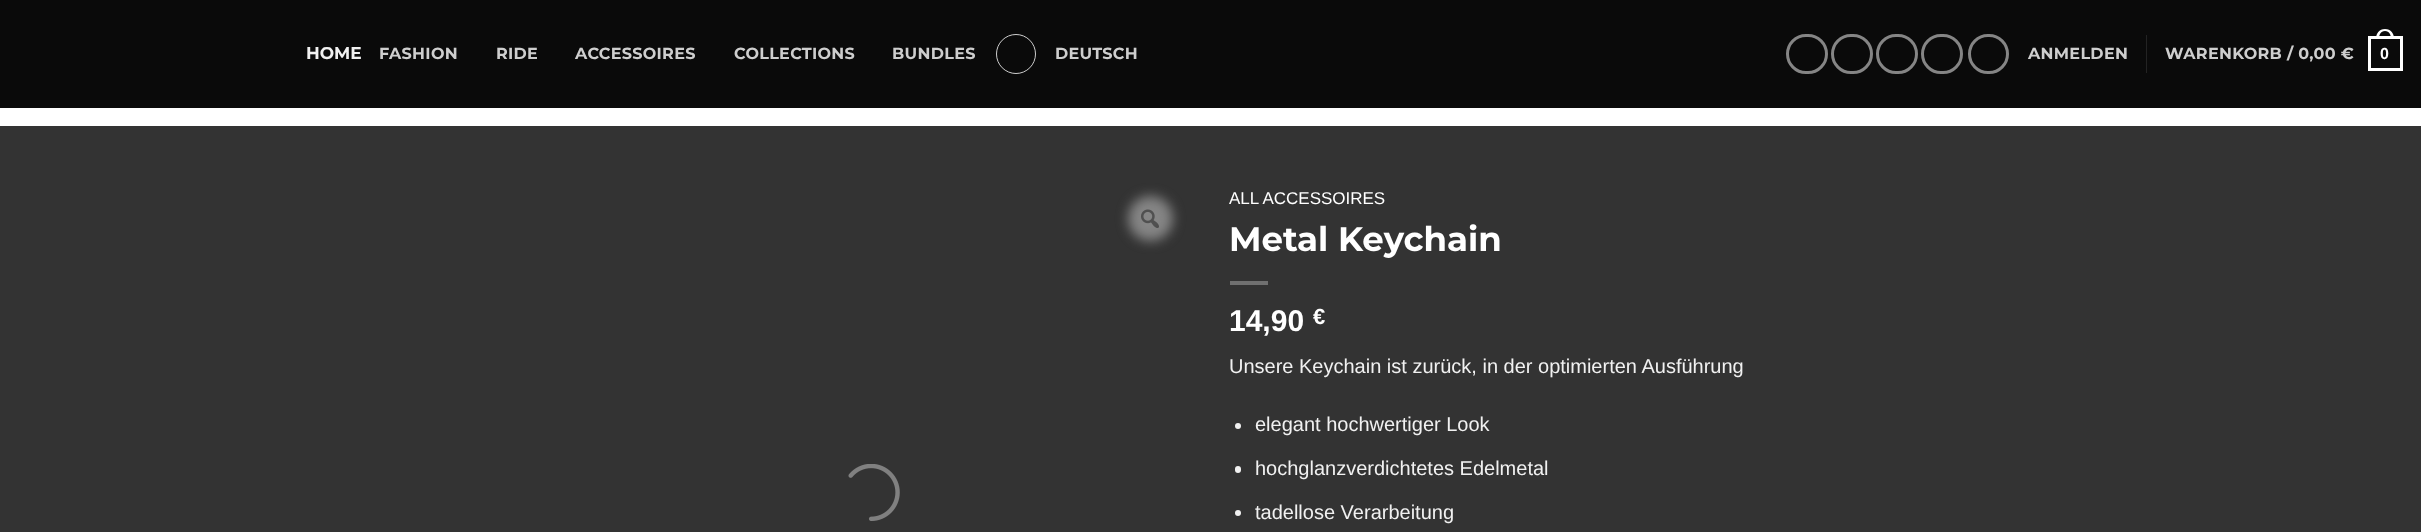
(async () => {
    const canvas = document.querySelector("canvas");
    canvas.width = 2421;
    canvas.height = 532;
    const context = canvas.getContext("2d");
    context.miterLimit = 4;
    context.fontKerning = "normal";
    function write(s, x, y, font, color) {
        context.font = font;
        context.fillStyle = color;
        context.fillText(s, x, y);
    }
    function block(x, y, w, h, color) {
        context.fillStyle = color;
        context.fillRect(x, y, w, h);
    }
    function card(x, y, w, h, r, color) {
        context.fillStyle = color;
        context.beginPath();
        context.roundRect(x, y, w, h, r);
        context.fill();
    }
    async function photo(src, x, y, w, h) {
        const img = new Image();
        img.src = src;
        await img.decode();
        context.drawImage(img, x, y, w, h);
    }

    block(0, 0, 2421, 532, "rgb(255, 255, 255)");
    block(0, 0, 2421, 108, "rgb(10, 10, 10)");
    write("HOME", 306, 59, "bold 17px Montserrat", "rgb(241, 241, 241)");
    context.letterSpacing = "0.3px";
    write("FASHION", 379, 59, "bold 16px Montserrat", "rgb(206, 206, 206)");
    write("RIDE", 496, 59, "bold 16px Montserrat", "rgb(206, 206, 206)");
    write("ACCESSOIRES", 575, 59, "bold 16px Montserrat", "rgb(206, 206, 206)");
    write("COLLECTIONS", 734, 59, "bold 16px Montserrat", "rgb(206, 206, 206)");
    write("BUNDLES", 892, 59, "bold 16px Montserrat", "rgb(206, 206, 206)");
    context.beginPath();
    context.arc(1016, 54, 19.5, 0, Math.PI * 2);
    context.strokeStyle = "rgb(206, 206, 206)";
    context.stroke();
    write("DEUTSCH", 1055, 59, "bold 16px Montserrat", "rgb(206, 206, 206)");
    context.beginPath();
    context.roundRect(1787.5, 35.5, 39, 37, 18.5);
    context.strokeStyle = "rgb(133, 133, 133)";
    context.lineWidth = 3;
    context.stroke();
    context.beginPath();
    context.roundRect(1832.5, 35.5, 39, 37, 18.5);
    context.stroke();
    context.beginPath();
    context.roundRect(1877.5, 35.5, 39, 37, 18.5);
    context.stroke();
    context.beginPath();
    context.roundRect(1922.5, 35.5, 39, 37, 18.5);
    context.stroke();
    context.beginPath();
    context.roundRect(1969.5, 35.5, 38, 37, 18.5);
    context.stroke();
    write("ANMELDEN", 2028, 59, "bold 16px Montserrat", "rgb(206, 206, 206)");
    block(2146, 35, 1, 38, "rgb(35, 35, 35)");
    write("WARENKORB / 0,00 €", 2165, 59, "bold 16px Montserrat", "rgb(206, 206, 206)");
    context.strokeStyle = "rgb(255, 255, 255)";
    context.strokeRect(2369.5, 37.5, 32, 32);
    context.fillStyle = "rgb(255, 255, 255)";
    context.beginPath();
    context.moveTo(2385, 29);
    context.bezierCurveTo(2391, 29, 2394, 33.5, 2394, 39);
    context.lineTo(2376, 39);
    context.bezierCurveTo(2376, 33.5, 2379, 29, 2385, 29);
    context.closePath();
    context.moveTo(2385, 31);
    context.bezierCurveTo(2389.5, 31, 2391, 35, 2391, 39);
    context.lineTo(2379, 39);
    context.bezierCurveTo(2379, 35, 2380.5, 31, 2385, 31);
    context.closePath();
    context.fill("evenodd");
    write("0", 2380, 59, "bold 16px Liberation Sans", "rgb(255, 255, 255)");
    block(0, 126, 2421, 406, "rgb(51, 51, 51)");
    context.fillStyle = "rgb(133, 133, 133)";
    context.filter = "blur(6px)";
    context.beginPath();
    context.roundRect(1128, 196, 45, 45, 22.5);
    context.fill();
    context.filter = "none";
    await photo("media/1.png", 1141, 209, 18, 19);
    await photo("media/2.png", 848, 464, 52, 57);
    context.letterSpacing = "0px";
    write("ALL ACCESSOIRES", 1229, 204, "17px Liberation Sans", "rgb(255, 255, 255)");
    write("Metal Keychain", 1229, 251, "bold 34px Montserrat", "rgb(255, 255, 255)");
    block(1230, 281, 38, 4, "rgb(112, 112, 112)");
    write("14,90", 1229, 331, "bold 30px Liberation Sans", "rgb(255, 255, 255)");
    write("€", 1313, 324, "bold 22px Liberation Sans", "rgb(255, 255, 255)");
    write("Unsere Keychain ist zurück, in der optimierten Ausführung", 1229, 373, "20px Liberation Sans", "rgb(241, 241, 241)");
    context.beginPath();
    context.arc(1238, 426, 3, 0, Math.PI * 2);
    context.fill();
    write("elegant hochwertiger Look", 1255, 431, "20px Liberation Sans", "rgb(241, 241, 241)");
    card(1235, 466, 6, 7, 3, "rgb(241, 241, 241)");
    write("hochglanzverdichtetes Edelmetal", 1255, 475, "20px Liberation Sans", "rgb(241, 241, 241)");
    context.beginPath();
    context.arc(1238, 513, 3, 0, Math.PI * 2);
    context.fill();
    write("tadellose Verarbeitung", 1255, 519, "20px Liberation Sans", "rgb(241, 241, 241)");
})();
